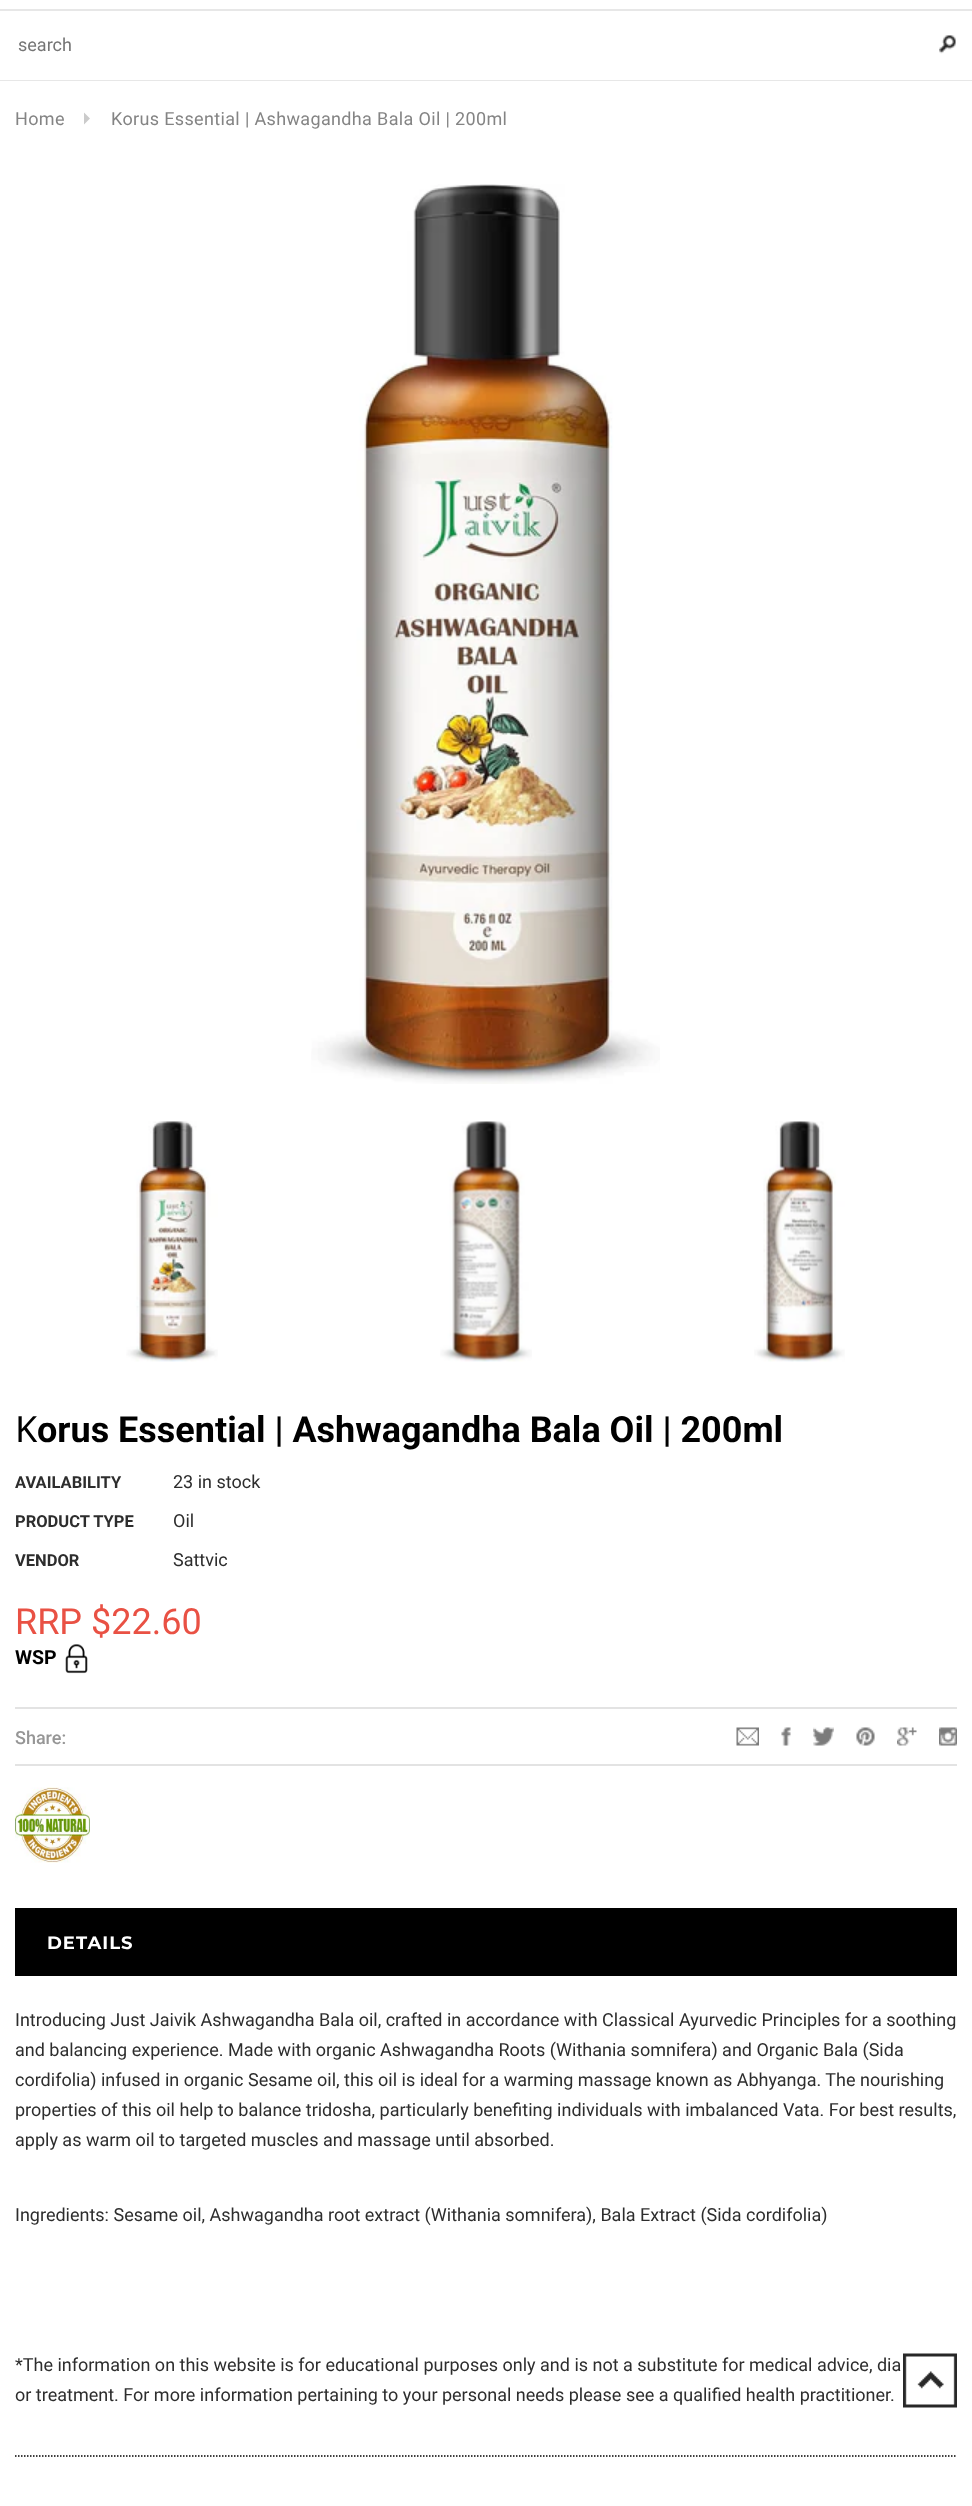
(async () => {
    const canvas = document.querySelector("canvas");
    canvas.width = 972;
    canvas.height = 2506;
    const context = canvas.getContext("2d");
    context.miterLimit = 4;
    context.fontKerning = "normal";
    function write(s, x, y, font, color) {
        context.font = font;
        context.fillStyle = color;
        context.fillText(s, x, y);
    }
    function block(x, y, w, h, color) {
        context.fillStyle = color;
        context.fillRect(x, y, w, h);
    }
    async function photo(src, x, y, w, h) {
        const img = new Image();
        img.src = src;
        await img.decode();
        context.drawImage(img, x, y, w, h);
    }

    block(0, 0, 972, 2506, "rgb(255, 255, 255)");
    block(0, 9, 972, 2, "rgb(231, 231, 231)");
    block(0, 80, 972, 1, "rgb(231, 231, 231)");
    write("search", 18, 51, "18px Roboto", "rgb(117, 117, 117)");
    await photo("media/1.png", 939, 35, 17, 19);
    context.letterSpacing = "0.35px";
    write("Home", 15, 125, "18px Roboto", "rgb(132, 132, 132)");
    context.fillStyle = "rgb(203, 203, 203)";
    context.beginPath();
    context.moveTo(84, 124.5);
    context.lineTo(84, 112.5);
    context.lineTo(90, 118.5);
    context.closePath();
    context.fill();
    write("Korus Essential | Ashwagandha Bala Oil | 200ml", 111, 125, "18px Roboto", "rgb(132, 132, 132)");
    await photo("media/2.png", 311, 184, 349, 900);
    await photo("media/3.png", 126, 1121, 92, 241);
    await photo("media/4.png", 440, 1121, 92, 241);
    await photo("media/5.png", 754, 1121, 91, 241);
    context.letterSpacing = "0px";
    write("K", 15, 1442, "36px Noto Sans", "rgb(0, 0, 0)");
    write("orus Essential | Ashwagandha Bala Oil | 200ml", 37, 1442, "bold 36px Roboto", "rgb(0, 0, 0)");
    write("AVAILABILITY", 15, 1488, "bold 16.5px Roboto", "rgb(45, 45, 45)");
    write("23 in stock", 173, 1488, "18px Roboto", "rgb(45, 45, 45)");
    write("PRODUCT TYPE", 15, 1527, "bold 16.5px Roboto", "rgb(45, 45, 45)");
    write("Oil", 173, 1527, "18px Roboto", "rgb(45, 45, 45)");
    write("VENDOR", 15, 1566, "bold 16.5px Roboto", "rgb(45, 45, 45)");
    write("Sattvic", 173, 1566, "18px Roboto", "rgb(45, 45, 45)");
    write("RRP $22.60", 15, 1634, "36px Roboto", "rgb(233, 81, 68)");
    write("WSP", 15, 1664, "bold 19.5px Roboto", "rgb(0, 0, 0)");
    await photo("media/6.png", 65, 1644, 23, 30);
    block(15, 1707, 942, 2, "rgb(227, 227, 227)");
    block(15, 1764, 942, 2, "rgb(227, 227, 227)");
    write("Share:", 15, 1744, "500 18px Roboto", "rgb(150, 150, 150)");
    await photo("media/7.png", 736, 1727, 23, 19);
    await photo("media/8.png", 781, 1727, 10, 19);
    await photo("media/9.png", 813, 1727, 21, 19);
    await photo("media/10.png", 856, 1727, 19, 19);
    await photo("media/11.png", 897, 1727, 20, 19);
    await photo("media/12.png", 939, 1727, 18, 19);
    await photo("media/13.png", 15, 1787, 75, 76);
    block(15, 1908, 942, 68, "rgb(0, 0, 0)");
    context.letterSpacing = "1px";
    write("DETAILS", 47, 1949, "bold 18px Montserrat", "rgb(255, 255, 255)");
    context.letterSpacing = "0px";
    write("Introducing Just Jaivik Ashwagandha Bala oil, crafted in accordance with Classical Ayurvedic Principles for a soothing", 15, 2026, "18px Roboto", "rgb(45, 45, 45)");
    write("and balancing experience. Made with organic Ashwagandha Roots (Withania somnifera) and Organic Bala (Sida", 15, 2056, "18px Roboto", "rgb(45, 45, 45)");
    write("cordifolia) infused in organic Sesame oil, this oil is ideal for a warming massage known as Abhyanga. The nourishing", 15, 2086, "18px Roboto", "rgb(45, 45, 45)");
    write("properties of this oil help to balance tridosha, particularly benefiting individuals with imbalanced Vata. For best results,", 15, 2116, "18px Roboto", "rgb(45, 45, 45)");
    write("apply as warm oil to targeted muscles and massage until absorbed.", 15, 2146, "18px Roboto", "rgb(45, 45, 45)");
    write("Ingredients: Sesame oil, Ashwagandha root extract (Withania somnifera), Bala Extract (Sida cordifolia)", 15, 2221, "18px Roboto", "rgb(45, 45, 45)");
    write("*The information on this website is for educational purposes only and is not a substitute for medical advice, dia", 15, 2371, "18px Roboto", "rgb(45, 45, 45)");
    write("or treatment. For more information pertaining to your personal needs please see a qualified health practitioner.", 15, 2401, "18px Roboto", "rgb(45, 45, 45)");
    context.beginPath();
    context.moveTo(15, 2456);
    context.lineTo(957, 2456);
    context.strokeStyle = "rgb(0, 0, 0)";
    context.lineWidth = 1.5;
    context.setLineDash([1.5, 1.5]);
    context.stroke();
    await photo("media/14.png", 903, 2353, 54, 55);
})();
